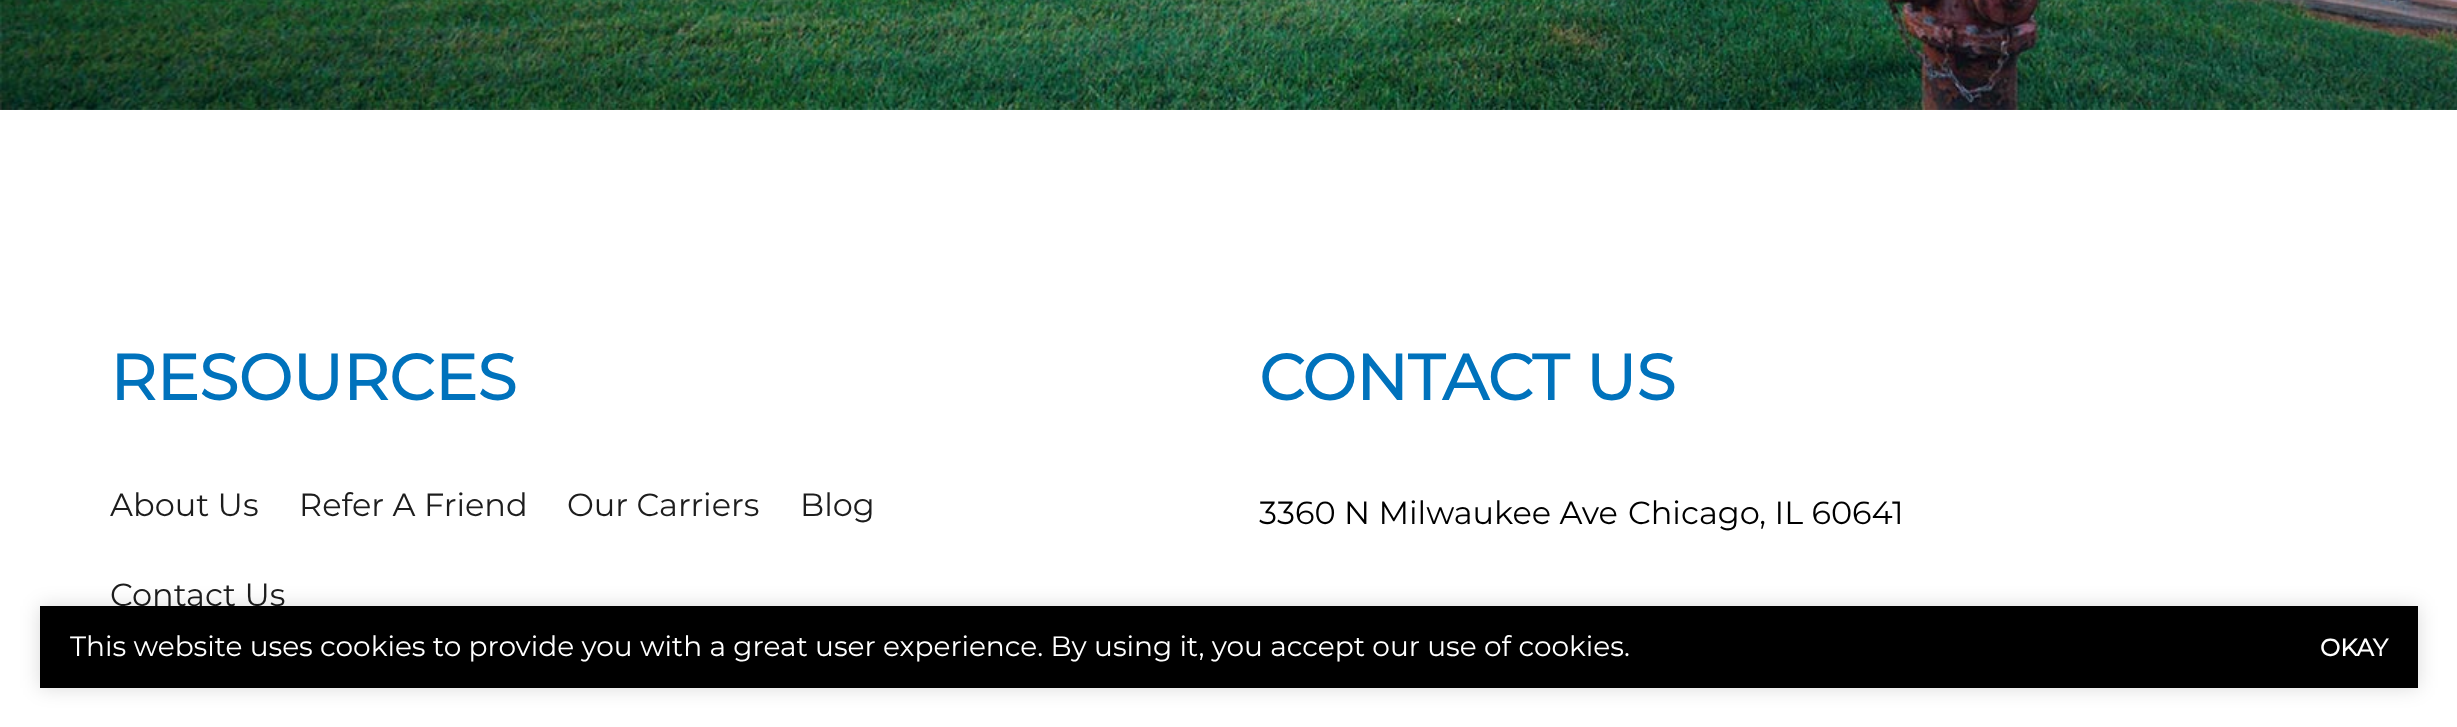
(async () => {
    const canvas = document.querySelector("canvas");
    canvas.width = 2457;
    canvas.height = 727;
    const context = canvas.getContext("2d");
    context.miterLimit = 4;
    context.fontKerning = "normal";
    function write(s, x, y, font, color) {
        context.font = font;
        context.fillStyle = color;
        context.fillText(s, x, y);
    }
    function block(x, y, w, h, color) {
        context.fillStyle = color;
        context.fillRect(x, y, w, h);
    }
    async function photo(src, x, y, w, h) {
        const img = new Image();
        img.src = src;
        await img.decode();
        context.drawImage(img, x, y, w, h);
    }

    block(0, 0, 2457, 727, "rgb(255, 255, 255)");
    await photo("media/1.png", 0, 0, 2457, 110);
    write("RESOURCES", 110, 400, "bold 64px Montserrat", "rgb(0, 114, 188)");
    write("About Us", 110, 516, "100 32px Montserrat", "rgb(29, 29, 29)");
    write("Refer A Friend", 299, 516, "100 32px Montserrat", "rgb(29, 29, 29)");
    write("Our Carriers", 567, 516, "100 32px Montserrat", "rgb(29, 29, 29)");
    write("Blog", 800, 516, "100 32px Montserrat", "rgb(29, 29, 29)");
    write("Contact Us", 110, 606, "100 32px Montserrat", "rgb(29, 29, 29)");
    write("CONTACT US", 1259, 400, "bold 64px Montserrat", "rgb(0, 114, 188)");
    write("3360 N Milwaukee Ave", 1259, 524, "100 32px Montserrat", "rgb(0, 0, 0)");
    write("Chicago, IL 60641", 1628, 524, "100 32px Montserrat", "rgb(0, 0, 0)");
    context.fillStyle = "rgba(0, 0, 0, 0.15)";
    context.filter = "blur(10px)";
    context.beginPath();
    context.rect(40, 606, 2378, 82);
    context.fill();
    context.filter = "none";
    block(40, 606, 2378, 82, "rgb(0, 0, 0)");
    write("This website uses cookies to provide you with a great user experience. By using it, you accept our use of cookies.", 70, 656, "100 28px Montserrat", "rgb(255, 255, 255)");
    write("OKAY", 2320, 656, "bold 24px Montserrat", "rgb(255, 255, 255)");
})();
